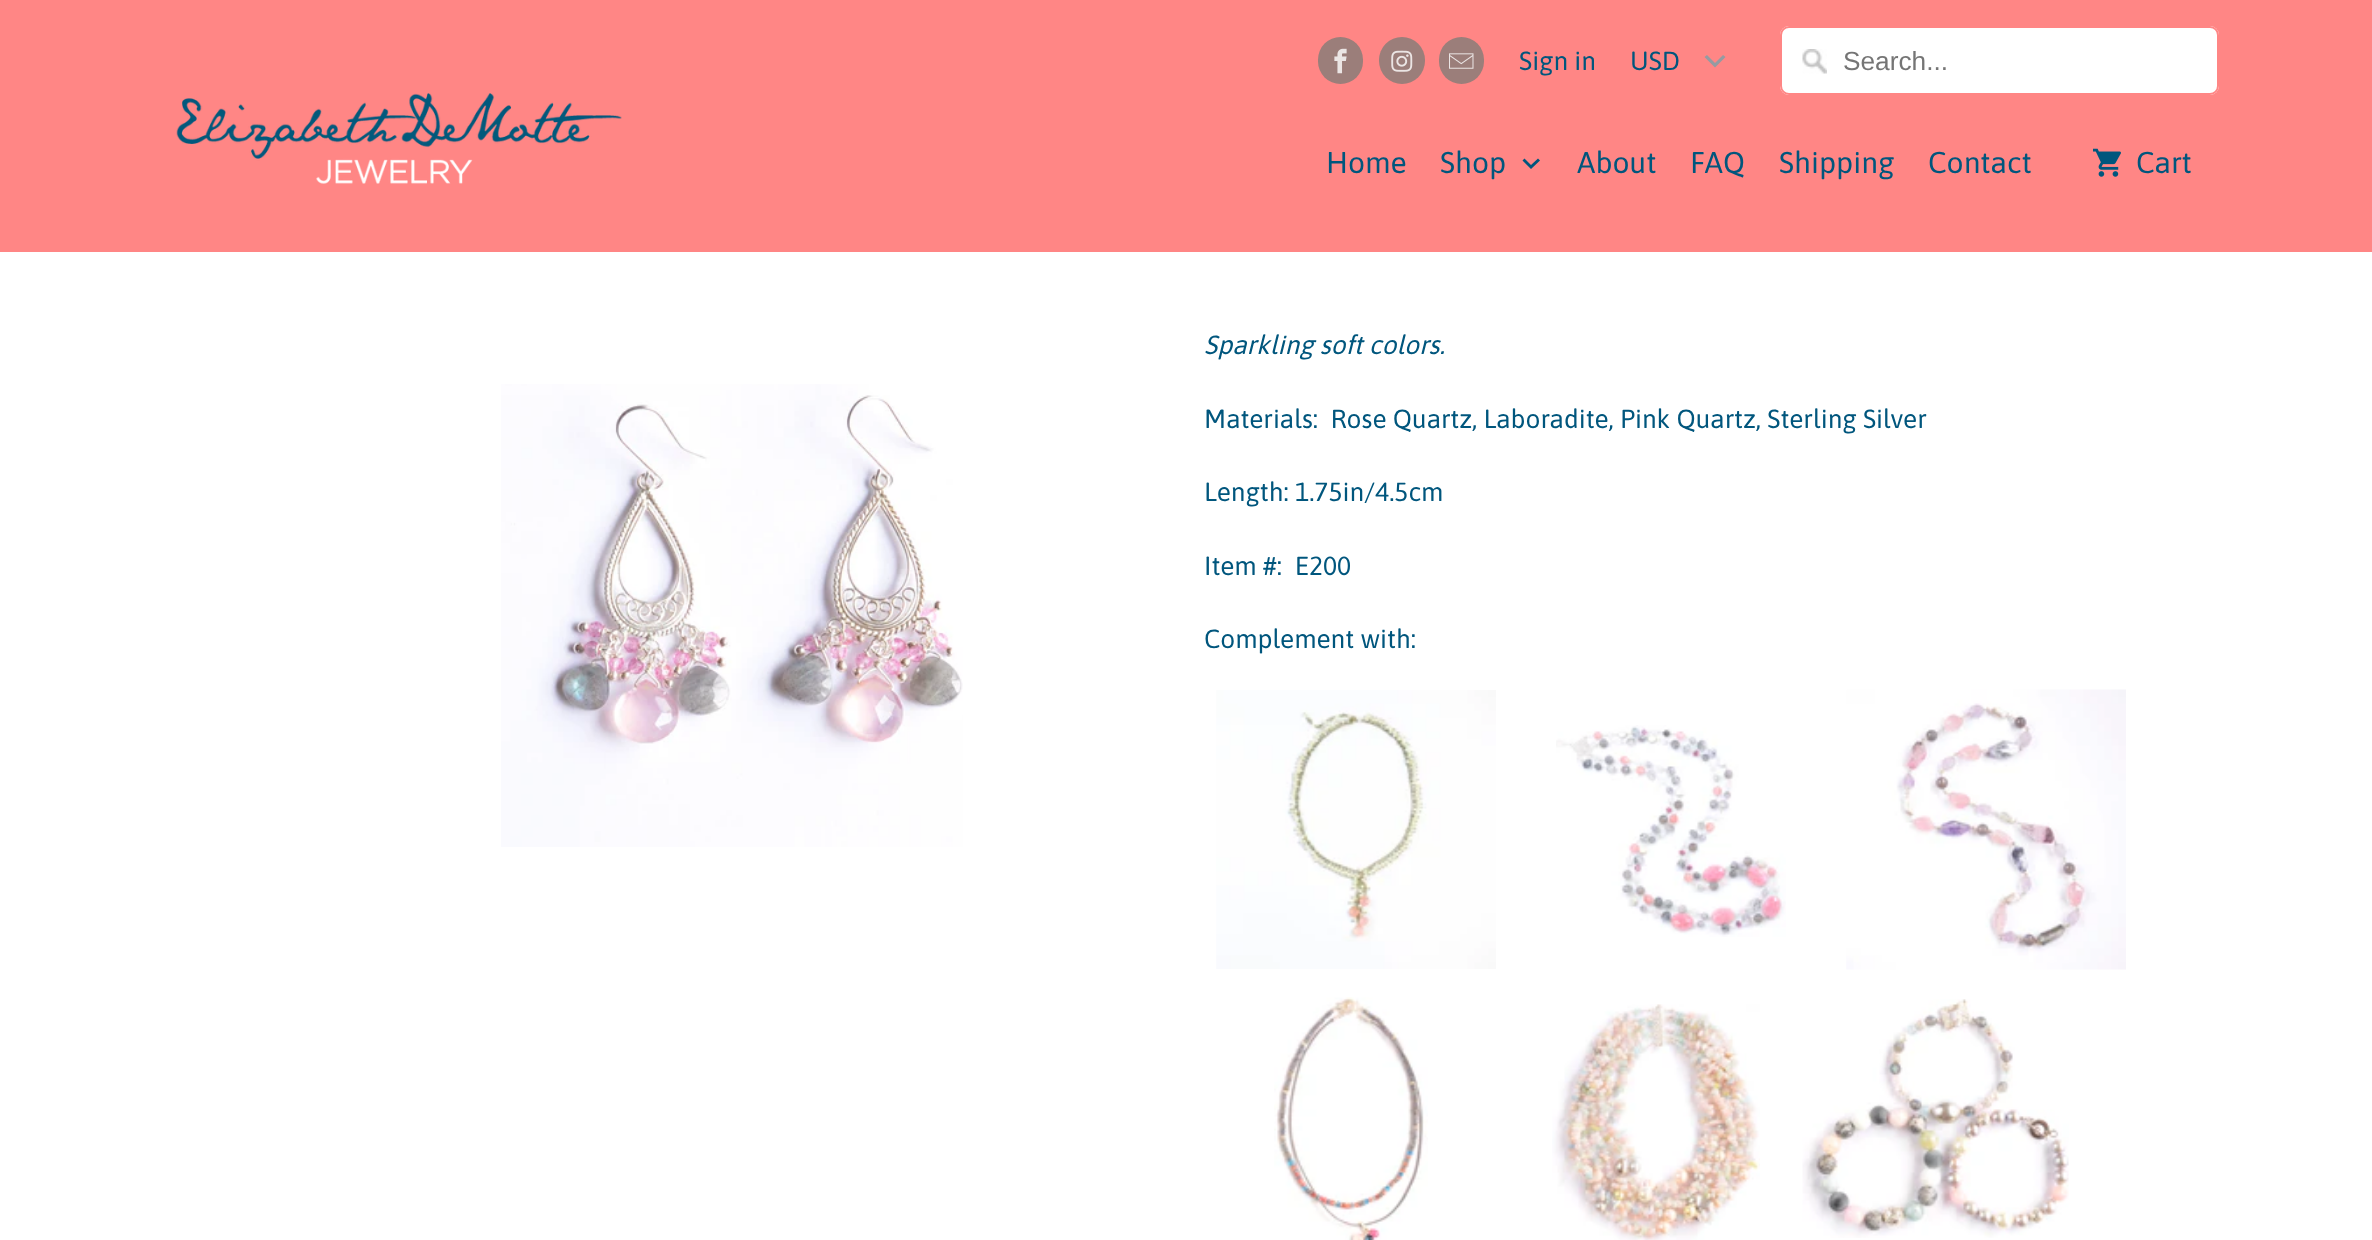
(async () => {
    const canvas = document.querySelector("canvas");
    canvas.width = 2372;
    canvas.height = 1240;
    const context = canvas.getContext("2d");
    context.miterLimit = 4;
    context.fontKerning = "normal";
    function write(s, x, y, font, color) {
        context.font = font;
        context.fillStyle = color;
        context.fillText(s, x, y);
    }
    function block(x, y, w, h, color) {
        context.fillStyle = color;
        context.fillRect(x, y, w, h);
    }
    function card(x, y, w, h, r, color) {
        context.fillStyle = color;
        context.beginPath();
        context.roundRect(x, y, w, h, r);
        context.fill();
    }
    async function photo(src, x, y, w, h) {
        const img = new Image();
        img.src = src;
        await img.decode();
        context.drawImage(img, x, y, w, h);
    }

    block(0, 0, 2372, 1240, "rgb(255, 255, 255)");
    block(0, 0, 2372, 252, "rgb(255, 134, 133)");
    await photo("media/1.png", 176, 93, 446, 91);
    card(1318, 37, 45, 47, 22.5, "rgb(155, 126, 122)");
    await photo("media/2.png", 1334, 48, 13, 26);
    card(1379, 37, 46, 47, 23, "rgb(155, 126, 122)");
    await photo("media/3.png", 1391, 50, 22, 22);
    card(1439, 37, 45, 47, 22.5, "rgb(155, 126, 122)");
    await photo("media/4.png", 1449, 53, 25, 16);
    write("Sign in", 1519, 70, "26.25px Asap", "rgb(0, 86, 125)");
    context.fillStyle = "rgb(149, 155, 162)";
    context.beginPath();
    context.moveTo(1723, 55);
    context.lineTo(1715, 63);
    context.lineTo(1707, 55);
    context.lineTo(1704.5, 57);
    context.lineTo(1715, 67.5);
    context.lineTo(1725.5, 57);
    context.closePath();
    context.fill();
    write("USD", 1630, 70, "26.25px Asap", "rgb(0, 86, 125)");
    card(1780, 26, 439, 69, 9, "rgb(255, 255, 255)");
    await photo("media/5.png", 1802, 49, 25, 25);
    context.beginPath();
    context.roundRect(1781, 27, 437, 67, 8);
    context.strokeStyle = "rgb(255, 134, 133)";
    context.lineWidth = 2;
    context.stroke();
    write("Search...", 1843, 70, "26.25px Liberation Sans", "rgb(117, 117, 117)");
    write("Home", 1326, 173, "30px Asap", "rgb(0, 86, 125)");
    write("Shop", 1440, 173, "30px Asap", "rgb(0, 86, 125)");
    context.beginPath();
    context.moveTo(1538, 158.5);
    context.lineTo(1531, 165);
    context.lineTo(1524.5, 158.5);
    context.lineTo(1522.5, 160.5);
    context.lineTo(1531, 169);
    context.lineTo(1540, 160.5);
    context.closePath();
    context.fill();
    write("About", 1577, 173, "30px Asap", "rgb(0, 86, 125)");
    write("FAQ", 1690, 173, "30px Asap", "rgb(0, 86, 125)");
    write("Shipping", 1779, 173, "30px Asap", "rgb(0, 86, 125)");
    write("Contact", 1928, 173, "30px Asap", "rgb(0, 86, 125)");
    await photo("media/6.png", 2093, 148, 28, 29);
    write("Cart", 2136, 173, "30px Asap", "rgb(0, 86, 125)");
    await photo("media/7.png", 501, 384, 462, 463);
    write("Sparkling soft colors.", 1204, 354, "italic 26.25px Asap", "rgb(0, 86, 125)");
    write("Materials:  Rose Quartz, Laboradite, Pink Quartz, Sterling Silver", 1204, 428, "26.25px Asap", "rgb(0, 86, 125)");
    write("Length: 1.75in/4.5cm", 1204, 501, "26.25px Asap", "rgb(0, 86, 125)");
    write("Item #:  E200", 1204, 575, "26.25px Asap", "rgb(0, 86, 125)");
    write("Complement with:", 1204, 648, "26.25px Asap", "rgb(0, 86, 125)");
    await photo("media/8.png", 1216, 690, 280, 279);
    await photo("media/9.png", 1556, 725, 230, 212);
    await photo("media/10.png", 1846, 689, 280, 281);
    await photo("media/11.png", 1274, 997, 154, 243);
    await photo("media/12.png", 1552, 1004, 208, 236);
    await photo("media/13.png", 1802, 999, 267, 239);
})();
